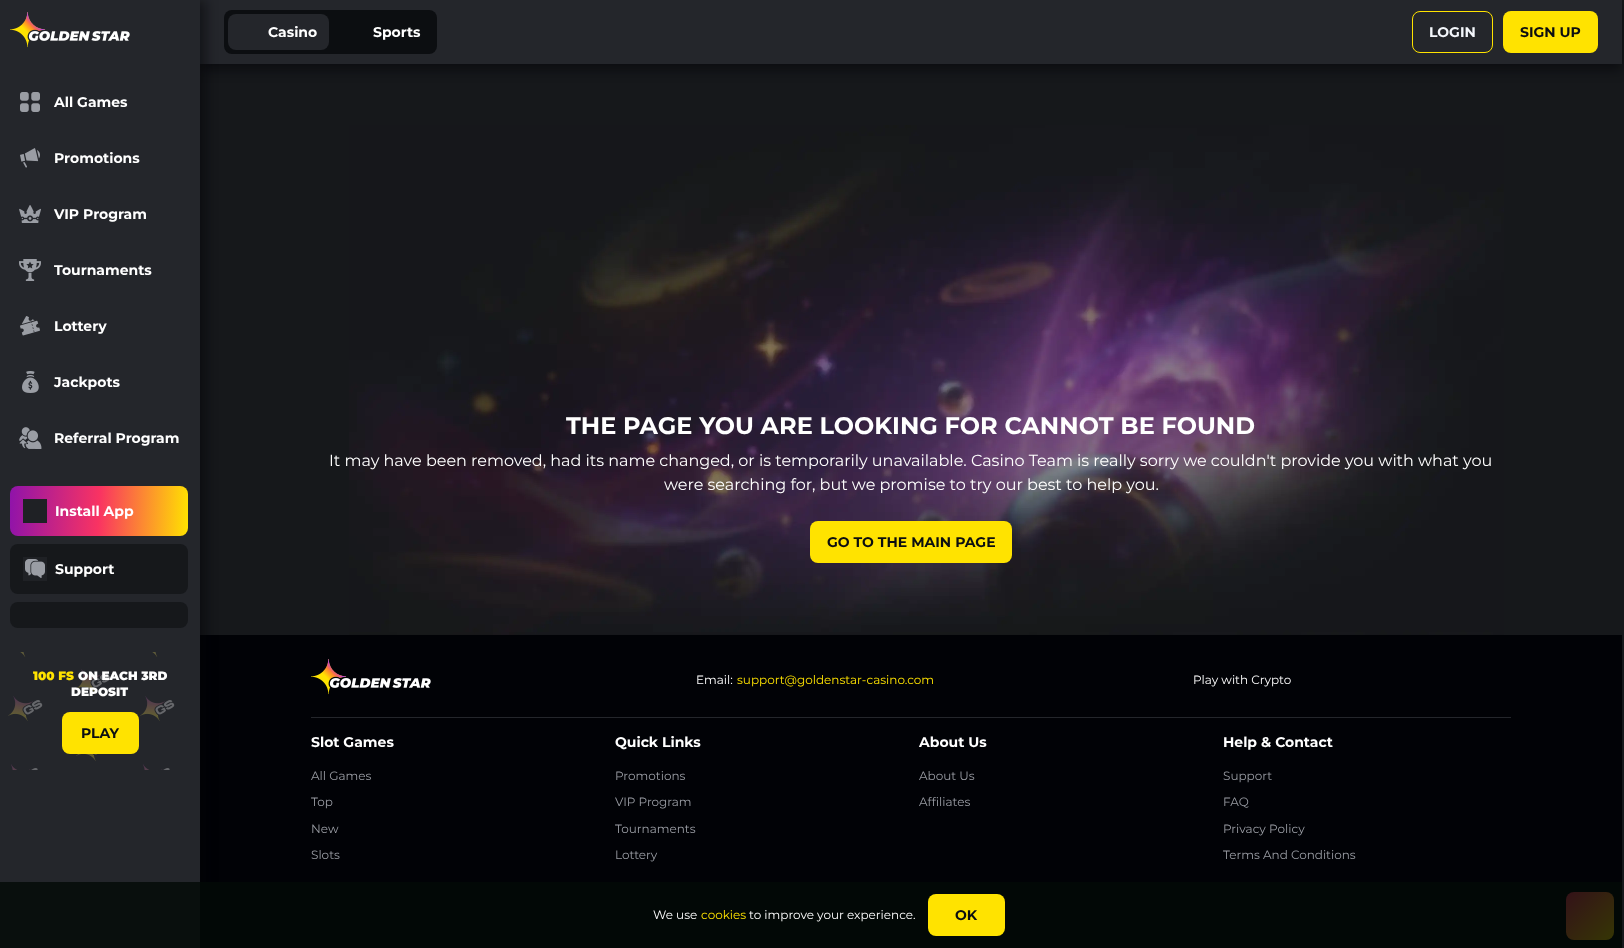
(async () => {
    const canvas = document.querySelector("canvas");
    canvas.width = 1624;
    canvas.height = 948;
    const context = canvas.getContext("2d");
    context.miterLimit = 4;
    context.fontKerning = "normal";
    function write(s, x, y, font, color) {
        context.font = font;
        context.fillStyle = color;
        context.fillText(s, x, y);
    }
    function block(x, y, w, h, color) {
        context.fillStyle = color;
        context.fillRect(x, y, w, h);
    }
    function card(x, y, w, h, r, color) {
        context.fillStyle = color;
        context.beginPath();
        context.roundRect(x, y, w, h, r);
        context.fill();
    }
    async function photo(src, x, y, w, h) {
        const img = new Image();
        img.src = src;
        await img.decode();
        context.drawImage(img, x, y, w, h);
    }
    let gradient;

    block(0, 0, 1624, 948, "rgb(22, 24, 27)");
    context.fillStyle = "rgba(1, 2, 6, 0.5)";
    context.filter = "blur(6px)";
    context.beginPath();
    context.rect(200, 6, 1422, 64);
    context.fill();
    context.filter = "none";
    block(200, 0, 1422, 64, "rgb(36, 38, 43)");
    card(224, 10, 213, 44, 8, "rgb(12, 14, 17)");
    card(228, 14, 101, 36, 8, "rgb(36, 38, 43)");
    write("Casino", 268, 37, "bold 14px Montserrat", "rgb(255, 255, 255)");
    write("Sports", 373, 37, "bold 14px Montserrat", "rgb(255, 255, 255)");
    context.beginPath();
    context.roundRect(1412.5, 11.5, 80, 41, 7.5);
    context.strokeStyle = "rgb(255, 227, 0)";
    context.stroke();
    write("LOGIN", 1429, 37, "bold 14px Montserrat", "rgb(244, 247, 252)");
    gradient = context.createLinearGradient(1598, 32, 1408, 32);
    gradient.addColorStop(0, "rgb(255, 227, 0)");
    gradient.addColorStop(0.5, "rgb(255, 227, 0)");
    gradient.addColorStop(0.84, "rgb(179, 149, 0)");
    context.fillStyle = gradient;
    context.beginPath();
    context.roundRect(1503, 11, 95, 42, 8);
    context.fill();
    write("SIGN UP", 1520, 37, "bold 14px Montserrat", "rgb(12, 14, 17)");
    block(200, 635, 1422, 313, "rgb(1, 2, 6)");
    context.fillStyle = "rgba(1, 2, 6, 0.5)";
    context.filter = "blur(6px)";
    context.beginPath();
    context.rect(6, 0, 200, 948);
    context.fill();
    context.filter = "none";
    block(0, 0, 200, 948, "rgb(36, 38, 43)");
    await photo("media/1.png", 10, 12, 120, 36);
    await photo("media/2.png", 20, 92, 20, 20);
    write("All Games", 54, 107, "bold 14px Montserrat", "rgb(255, 255, 255)");
    await photo("media/3.png", 20, 148, 20, 20);
    write("Promotions", 54, 163, "bold 14px Montserrat", "rgb(255, 255, 255)");
    await photo("media/4.png", 19, 205, 22, 18);
    write("VIP Program", 54, 219, "bold 14px Montserrat", "rgb(255, 255, 255)");
    await photo("media/5.png", 19, 259, 22, 22);
    write("Tournaments", 54, 275, "bold 14px Montserrat", "rgb(255, 255, 255)");
    await photo("media/6.png", 20, 316, 20, 20);
    write("Lottery", 54, 331, "bold 14px Montserrat", "rgb(255, 255, 255)");
    await photo("media/7.png", 22, 371, 17, 22);
    write("Jackpots", 54, 387, "bold 14px Montserrat", "rgb(255, 255, 255)");
    await photo("media/8.png", 19, 427, 23, 22);
    write("Referral Program", 54, 443, "bold 14px Montserrat", "rgb(255, 255, 255)");
    gradient = context.createLinearGradient(7.9, 527, 368, 545);
    gradient.addColorStop(0, "rgb(143, 19, 170)");
    gradient.addColorStop(0.25, "rgb(249, 51, 98)");
    gradient.addColorStop(0.5, "rgb(255, 227, 0)");
    gradient.addColorStop(0.75, "rgb(249, 51, 98)");
    gradient.addColorStop(1, "rgb(143, 19, 170)");
    context.fillStyle = gradient;
    context.beginPath();
    context.roundRect(10, 486, 178, 50, 8);
    context.fill();
    block(23, 499, 24, 24, "rgb(31, 33, 37)");
    write("Install App", 55, 516, "bold 14px Montserrat", "rgb(255, 255, 255)");
    card(10, 544, 178, 50, 8, "rgb(22, 24, 27)");
    block(23, 557, 24, 24, "rgb(31, 33, 37)");
    await photo("media/9.png", 25, 559, 20, 19);
    write("Support", 55, 574, "bold 14px Montserrat", "rgb(255, 255, 255)");
    card(10, 602, 178, 26, 8, "rgb(22, 24, 27)");
    await photo("media/10.png", 8, 652, 167, 118);
    write("100 FS", 33, 680, "900 12px Montserrat", "rgb(255, 227, 0)");
    write("ON EACH 3RD", 78, 680, "900 12px Montserrat", "rgb(255, 255, 255)");
    write("DEPOSIT", 71, 696, "900 12px Montserrat", "rgb(255, 255, 255)");
    gradient = context.createLinearGradient(139, 733, -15, 733);
    gradient.addColorStop(0, "rgb(255, 227, 0)");
    gradient.addColorStop(0.5, "rgb(255, 227, 0)");
    gradient.addColorStop(0.84, "rgb(179, 149, 0)");
    context.fillStyle = gradient;
    context.beginPath();
    context.roundRect(62, 712, 77, 42, 8);
    context.fill();
    write("PLAY", 81, 738, "bold 14px Montserrat", "rgb(12, 14, 17)");
    await photo("media/11.png", 349, 125, 1155, 510);
    write("THE PAGE YOU ARE LOOKING FOR CANNOT BE FOUND", 566, 434, "bold 24px Montserrat", "rgb(255, 255, 255)");
    write("It may have been removed, had its name changed, or is temporarily unavailable. Casino Team is really sorry we couldn't provide you with what you", 329, 466, "16px Montserrat", "rgb(255, 255, 255)");
    write("were searching for, but we promise to try our best to help you.", 664, 490, "16px Montserrat", "rgb(255, 255, 255)");
    gradient = context.createLinearGradient(1012, 542, 608, 542);
    gradient.addColorStop(0, "rgb(255, 227, 0)");
    gradient.addColorStop(0.5, "rgb(255, 227, 0)");
    gradient.addColorStop(0.84, "rgb(179, 149, 0)");
    context.fillStyle = gradient;
    context.beginPath();
    context.roundRect(810, 521, 202, 42, 8);
    context.fill();
    write("GO TO THE MAIN PAGE", 827, 547, "bold 14px Montserrat", "rgb(12, 14, 17)");
    await photo("media/12.png", 311, 659, 120, 36);
    write("Email:", 696, 684, "12px Montserrat", "rgb(255, 255, 255)");
    write("support@goldenstar-casino.com", 737, 684, "12px Montserrat", "rgb(255, 227, 0)");
    write("Play with Crypto", 1193, 684, "12px Montserrat", "rgb(255, 255, 255)");
    block(311, 717, 1200, 1, "rgb(36, 38, 43)");
    write("Slot Games", 311, 747, "bold 14px Montserrat", "rgb(255, 255, 255)");
    write("All Games", 311, 780, "12px Montserrat", "rgb(154, 157, 164)");
    write("Top", 311, 806, "12px Montserrat", "rgb(154, 157, 164)");
    write("New", 311, 833, "12px Montserrat", "rgb(154, 157, 164)");
    write("Slots", 311, 859, "12px Montserrat", "rgb(154, 157, 164)");
    write("Quick Links", 615, 747, "bold 14px Montserrat", "rgb(255, 255, 255)");
    write("Promotions", 615, 780, "12px Montserrat", "rgb(154, 157, 164)");
    write("VIP Program", 615, 806, "12px Montserrat", "rgb(154, 157, 164)");
    write("Tournaments", 615, 833, "12px Montserrat", "rgb(154, 157, 164)");
    write("Lottery", 615, 859, "12px Montserrat", "rgb(154, 157, 164)");
    write("About Us", 919, 747, "bold 14px Montserrat", "rgb(255, 255, 255)");
    write("About Us", 919, 780, "12px Montserrat", "rgb(154, 157, 164)");
    write("Affiliates", 919, 806, "12px Montserrat", "rgb(154, 157, 164)");
    write("Help & Contact", 1223, 747, "bold 14px Montserrat", "rgb(255, 255, 255)");
    write("Support", 1223, 780, "12px Montserrat", "rgb(154, 157, 164)");
    write("FAQ", 1223, 806, "12px Montserrat", "rgb(154, 157, 164)");
    write("Privacy Policy", 1223, 833, "12px Montserrat", "rgb(154, 157, 164)");
    write("Terms And Conditions", 1223, 859, "12px Montserrat", "rgb(154, 157, 164)");
    gradient = context.createLinearGradient(1614, 940, 1518, 844);
    gradient.addColorStop(0, "rgb(255, 227, 0)");
    gradient.addColorStop(0.5, "rgb(249, 51, 98)");
    gradient.addColorStop(1, "rgb(255, 227, 0)");
    context.fillStyle = gradient;
    context.beginPath();
    context.roundRect(1566, 892, 48, 48, 8);
    context.fill();
    block(0, 882, 1622, 66, "rgba(2, 10, 6, 0.8)");
    write("We use", 653, 919, "12px Montserrat", "rgb(255, 255, 255)");
    write("cookies", 701, 919, "12px Montserrat", "rgb(255, 227, 0)");
    write("to improve your experience.", 749, 919, "12px Montserrat", "rgb(255, 255, 255)");
    gradient = context.createLinearGradient(1005, 915, 851, 915);
    gradient.addColorStop(0, "rgb(255, 227, 0)");
    gradient.addColorStop(0.5, "rgb(255, 227, 0)");
    gradient.addColorStop(0.84, "rgb(179, 149, 0)");
    context.fillStyle = gradient;
    context.beginPath();
    context.roundRect(928, 894, 77, 42, 8);
    context.fill();
    write("OK", 955, 920, "bold 14px Montserrat", "rgb(12, 14, 17)");
})();
